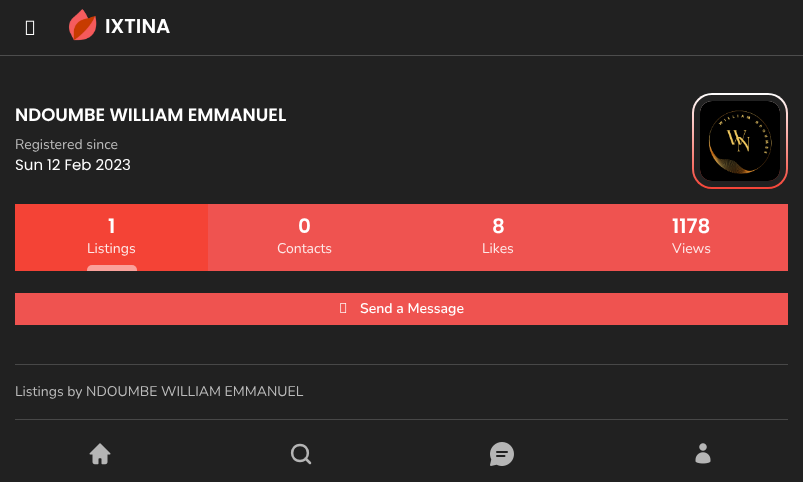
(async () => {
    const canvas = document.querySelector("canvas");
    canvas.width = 803;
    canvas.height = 482;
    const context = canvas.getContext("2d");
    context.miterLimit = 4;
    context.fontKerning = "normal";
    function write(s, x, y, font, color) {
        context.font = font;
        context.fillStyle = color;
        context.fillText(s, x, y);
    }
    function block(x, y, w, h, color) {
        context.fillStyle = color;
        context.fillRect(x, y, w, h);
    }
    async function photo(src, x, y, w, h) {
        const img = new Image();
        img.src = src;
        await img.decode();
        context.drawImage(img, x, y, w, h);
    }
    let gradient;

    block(0, 0, 803, 482, "rgb(33, 33, 33)");
    block(0, 55, 803, 1, "rgb(77, 77, 77)");
    await photo("media/1.png", 25, 20, 10, 15);
    await photo("media/2.png", 68, 9, 29, 32);
    write("IXTINA", 105, 33, "600 20px Poppins", "rgb(255, 255, 255)");
    write("NDOUMBE WILLIAM EMMANUEL", 15, 121, "600 18px Poppins", "rgb(255, 255, 255)");
    write("Registered since", 15, 149, "14px Nunito", "rgb(188, 188, 188)");
    write("Sun 12 Feb 2023", 15, 170, "15px Poppins", "rgb(255, 255, 255)");
    gradient = context.createLinearGradient(740, 93, 740, 189);
    gradient.addColorStop(0, "rgb(255, 255, 255)");
    gradient.addColorStop(1, "rgb(244, 67, 54)");
    context.fillStyle = gradient;
    context.beginPath();
    context.roundRect(692, 93, 96, 96, 20);
    context.fill();
    context.beginPath();
    context.roundRect(697, 98, 86, 86, 15);
    context.strokeStyle = "rgb(33, 33, 33)";
    context.lineWidth = 6;
    context.stroke();
    await photo("media/3.png", 700, 101, 80, 80);
    block(208, 204, 580, 67, "rgb(239, 83, 80)");
    block(15, 204, 193, 67, "rgb(244, 67, 54)");
    write("1", 108, 233, "600 20px Poppins", "rgb(255, 255, 255)");
    write("Listings", 87, 253, "14px Nunito", "rgb(253, 233, 232)");
    context.fillStyle = "rgb(250, 161, 155)";
    context.beginPath();
    context.roundRect(87, 265, 50, 6, [5, 5, 0, 0]);
    context.fill();
    write("0", 298, 233, "600 20px Poppins", "rgb(255, 255, 255)");
    write("Contacts", 277, 253, "14px Nunito", "rgb(253, 233, 232)");
    write("8", 492, 233, "600 20px Poppins", "rgb(255, 255, 255)");
    write("Likes", 482, 253, "14px Nunito", "rgb(253, 233, 232)");
    write("1178", 672, 233, "600 20px Poppins", "rgb(255, 255, 255)");
    write("Views", 672, 253, "14px Nunito", "rgb(253, 233, 232)");
    block(15, 293, 773, 32, "rgb(239, 83, 80)");
    await photo("media/4.png", 340, 303, 7, 10);
    write("Send a Message", 360, 313, "600 14px Nunito", "rgb(255, 255, 255)");
    block(15, 364, 773, 1, "rgb(72, 72, 72)");
    write("Listings by NDOUMBE WILLIAM EMMANUEL", 15, 396, "14px Nunito", "rgb(188, 188, 188)");
    block(15, 419, 773, 1, "rgb(72, 72, 72)");
    await photo("media/5.png", 89, 443, 22, 22);
    context.beginPath();
    context.moveTo(300, 461);
    context.bezierCurveTo(310.5, 461, 310.5, 445, 300, 445);
    context.bezierCurveTo(289.5, 445, 289.5, 461, 300, 461);
    context.closePath();
    context.moveTo(310, 463);
    context.lineTo(305.5, 458.5);
    context.strokeStyle = "rgb(181, 181, 181)";
    context.lineWidth = 2.5;
    context.lineCap = "round";
    context.lineJoin = "round";
    context.stroke();
    await photo("media/6.png", 490, 442, 24, 24);
    await photo("media/7.png", 695, 443, 16, 21);
})();
